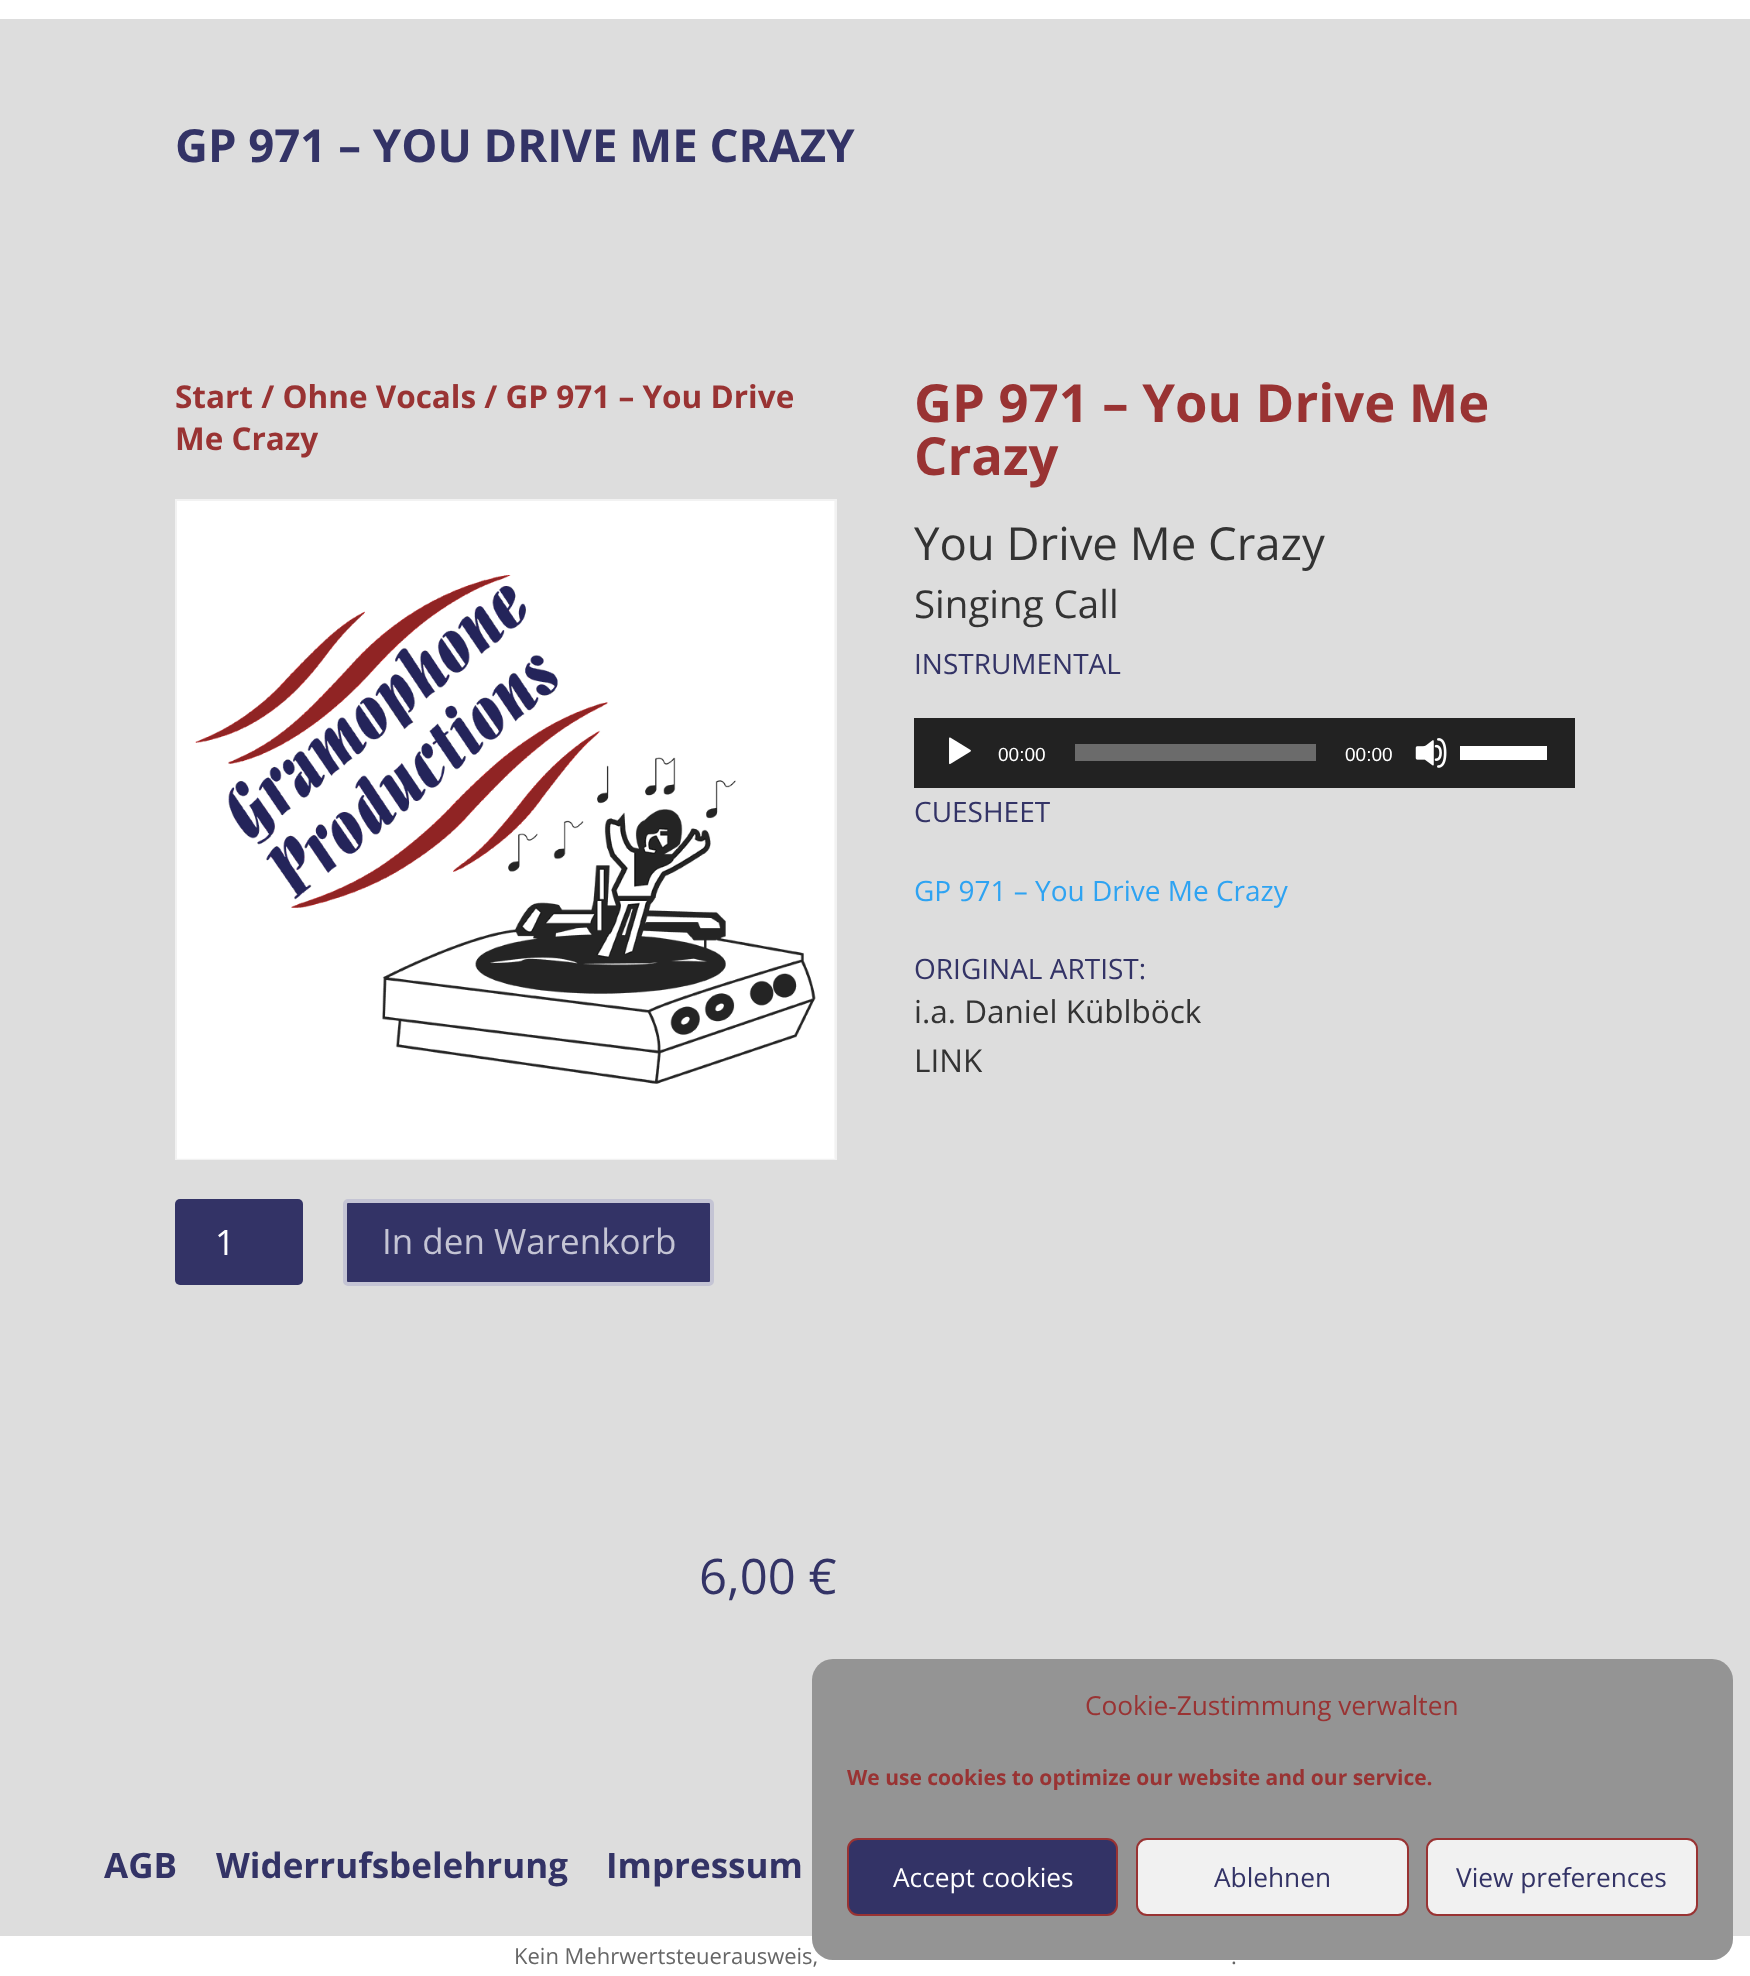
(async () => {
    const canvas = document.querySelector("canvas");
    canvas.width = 1750;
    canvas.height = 1976;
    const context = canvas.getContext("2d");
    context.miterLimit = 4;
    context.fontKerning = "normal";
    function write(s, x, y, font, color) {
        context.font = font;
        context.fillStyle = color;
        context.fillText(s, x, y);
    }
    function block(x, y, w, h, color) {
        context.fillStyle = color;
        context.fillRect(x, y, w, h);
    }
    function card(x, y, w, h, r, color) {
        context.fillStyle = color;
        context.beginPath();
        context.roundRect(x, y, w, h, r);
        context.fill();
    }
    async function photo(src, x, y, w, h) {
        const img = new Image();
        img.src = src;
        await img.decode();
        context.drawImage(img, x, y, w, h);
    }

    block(0, 0, 1750, 1976, "rgb(255, 255, 255)");
    block(0, 19, 1750, 1917, "rgb(221, 221, 221)");
    write("GP 971 – YOU DRIVE ME CRAZY", 175, 162, "bold 45.5px Open Sans", "rgb(51, 51, 102)");
    write("Start / Ohne Vocals / GP 971 – You Drive", 175, 408, "bold 31.5px Open Sans", "rgb(153, 51, 51)");
    write("Me Crazy", 175, 450, "bold 31.5px Open Sans", "rgb(153, 51, 51)");
    context.strokeStyle = "rgb(242, 242, 242)";
    context.lineWidth = 2;
    context.strokeRect(176, 500, 660, 659);
    await photo("media/1.png", 177, 501, 658, 658);
    card(175, 1199, 128, 86, 5, "rgb(51, 51, 102)");
    write("1", 215, 1255, "35px Open Sans", "rgb(255, 255, 255)");
    context.fillStyle = "rgb(51, 51, 102)";
    context.beginPath();
    context.roundRect(345, 1201, 367, 83, 3);
    context.fill();
    context.strokeStyle = "rgb(196, 196, 212)";
    context.lineWidth = 4;
    context.stroke();
    write("In den Warenkorb", 382, 1254, "35px Open Sans", "rgb(196, 196, 212)");
    write("6,00 €", 699, 1594, "49px Open Sans", "rgb(51, 51, 102)");
    write("GP 971 – You Drive Me", 914, 422, "bold 52.5px Open Sans", "rgb(153, 51, 51)");
    write("Crazy", 914, 475, "bold 52.5px Open Sans", "rgb(153, 51, 51)");
    write("You Drive Me Crazy", 914, 560, "45.5px Open Sans", "rgb(51, 51, 51)");
    write("Singing Call", 914, 618, "38.5px Open Sans", "rgb(51, 51, 51)");
    write("INSTRUMENTAL", 914, 674, "28px Open Sans", "rgb(51, 51, 102)");
    block(914, 718, 661, 70, "rgb(34, 34, 34)");
    await photo("media/2.png", 949, 737, 22, 28);
    write("00:00", 998, 761, "19px Liberation Sans", "rgb(255, 255, 255)");
    block(1075, 744, 241, 17, "rgb(107, 107, 107)");
    write("00:00", 1345, 761, "19px Liberation Sans", "rgb(255, 255, 255)");
    await photo("media/3.png", 1415, 738, 32, 30);
    block(1460, 746, 87, 14, "rgb(255, 255, 255)");
    write("CUESHEET", 914, 822, "28px Open Sans", "rgb(51, 51, 102)");
    write("GP 971 – You Drive Me Crazy", 914, 901, "28px Open Sans", "rgb(46, 163, 242)");
    write("ORIGINAL ARTIST:", 914, 979, "28px Open Sans", "rgb(51, 51, 102)");
    write("i.a. Daniel Küblböck", 914, 1023, "31.5px Open Sans", "rgb(51, 51, 51)");
    write("LINK", 914, 1072, "31.5px Open Sans", "rgb(51, 51, 51)");
    write("AGB", 104, 1878, "bold 35px Open Sans", "rgb(51, 51, 102)");
    write("Widerrufsbelehrung", 216, 1878, "bold 35px Open Sans", "rgb(51, 51, 102)");
    write("Impressum", 606, 1878, "bold 35px Open Sans", "rgb(51, 51, 102)");
    write("Kein Mehrwertsteuerausweis,", 514, 1964, "22px Open Sans", "rgb(102, 102, 102)");
    card(812, 1659, 921, 301, 21, "rgb(148, 148, 148)");
    write("Cookie-Zustimmung verwalten", 1085, 1715, "26.25px Open Sans", "rgb(153, 51, 51)");
    write("We use cookies to optimize our website and our service.", 847, 1785, "bold 21px Open Sans", "rgb(153, 51, 51)");
    context.fillStyle = "rgb(51, 51, 102)";
    context.beginPath();
    context.roundRect(848, 1839, 269, 76, 10);
    context.fill();
    context.strokeStyle = "rgb(153, 51, 51)";
    context.lineWidth = 2;
    context.stroke();
    write("Accept cookies", 893, 1887, "26.25px Open Sans", "rgb(255, 255, 255)");
    context.fillStyle = "rgb(241, 241, 241)";
    context.beginPath();
    context.roundRect(1137, 1839, 271, 76, 10);
    context.fill();
    context.stroke();
    write("Ablehnen", 1214, 1887, "26.25px Open Sans", "rgb(51, 51, 102)");
    context.fillStyle = "rgb(241, 241, 241)";
    context.beginPath();
    context.roundRect(1427, 1839, 270, 76, 10);
    context.fill();
    context.stroke();
    write("View preferences", 1456, 1887, "26.25px Open Sans", "rgb(51, 51, 102)");
    write(".", 1231, 1964, "22px Open Sans", "rgb(102, 102, 102)");
})();
